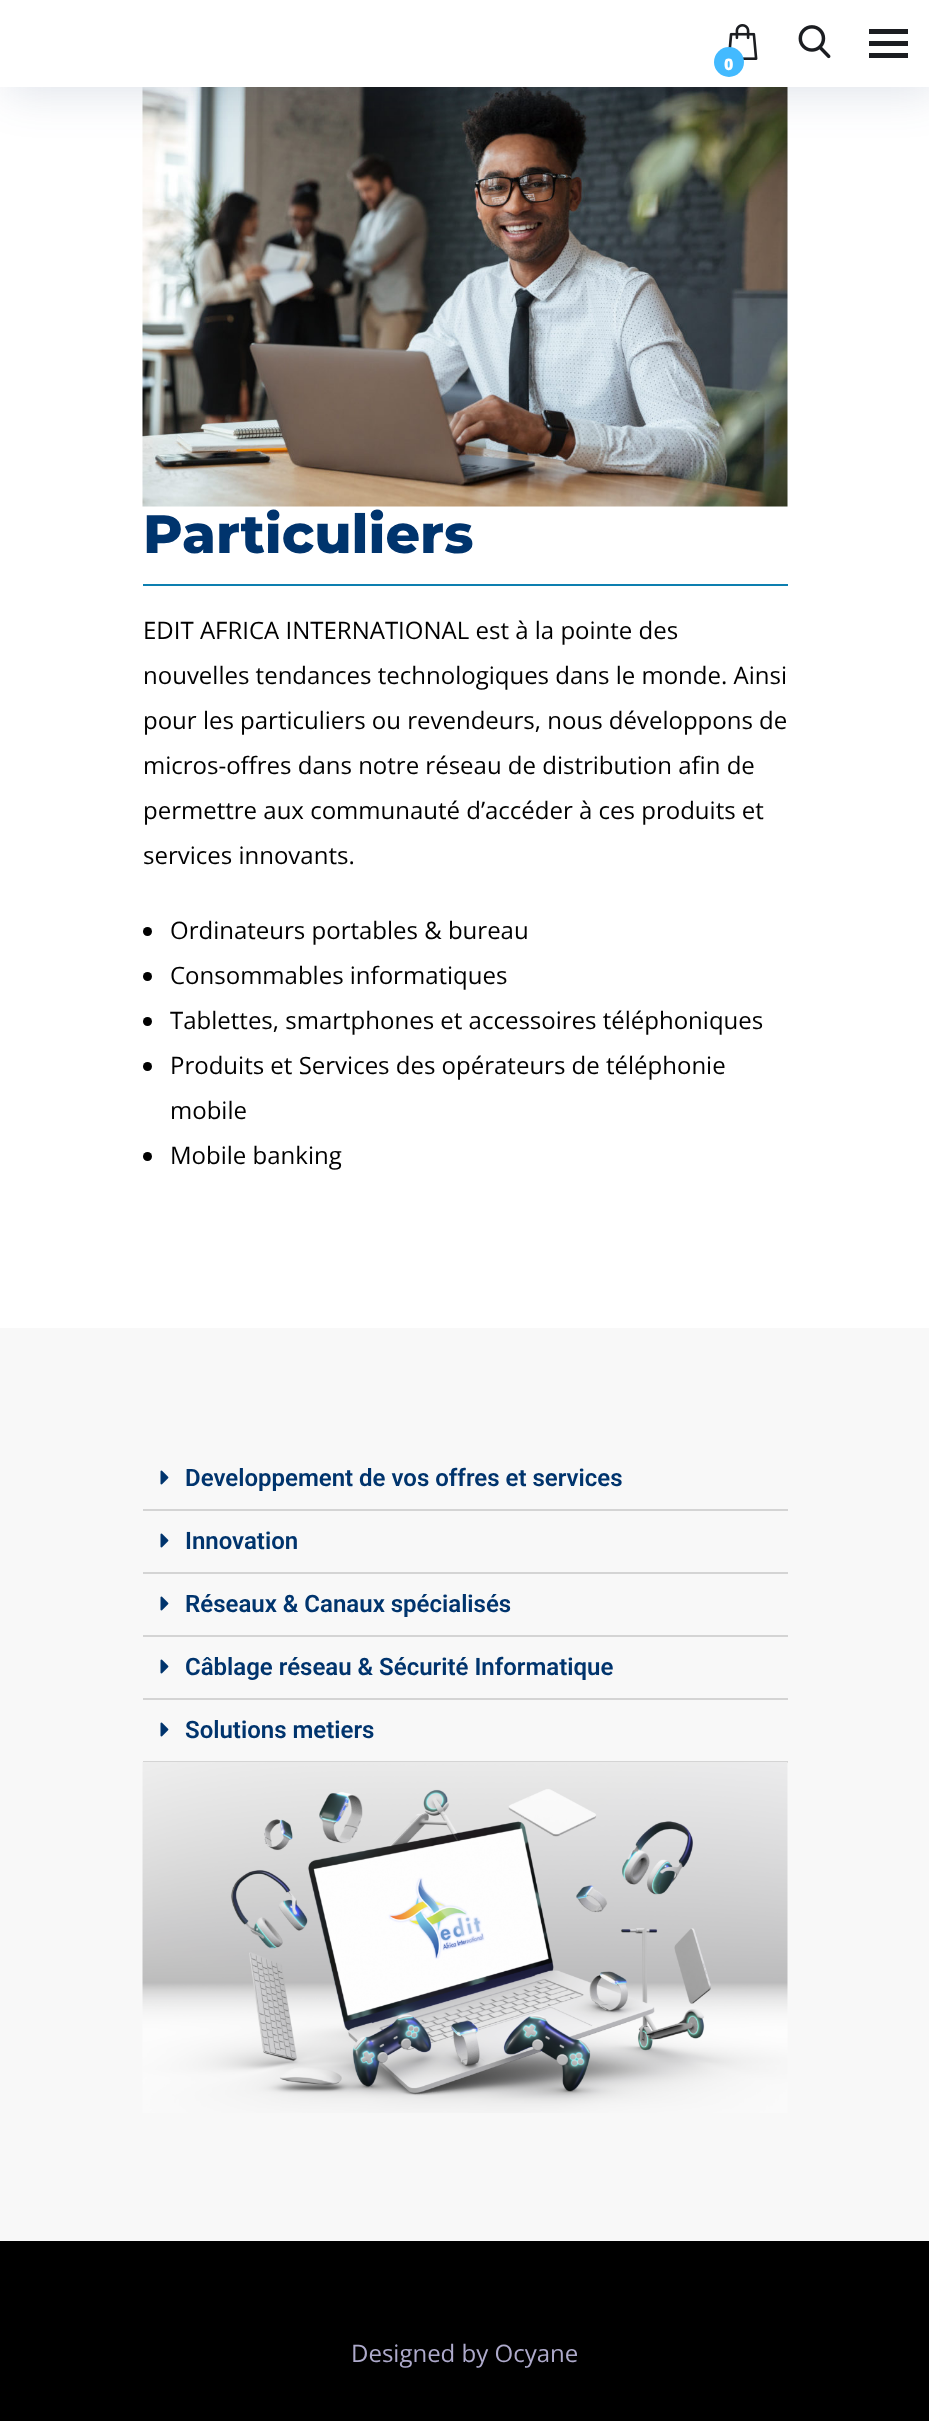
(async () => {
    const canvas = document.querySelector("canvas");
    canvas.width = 929;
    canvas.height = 2421;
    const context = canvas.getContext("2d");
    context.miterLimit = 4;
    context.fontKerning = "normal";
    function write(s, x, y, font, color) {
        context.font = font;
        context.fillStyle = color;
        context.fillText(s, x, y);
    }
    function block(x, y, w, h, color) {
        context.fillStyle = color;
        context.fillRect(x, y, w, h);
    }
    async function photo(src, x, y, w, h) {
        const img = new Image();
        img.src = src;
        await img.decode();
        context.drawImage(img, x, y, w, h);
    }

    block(0, 0, 929, 2421, "rgb(255, 255, 255)");
    await photo("media/3.png", 142, 87, 646, 420);
    context.fillStyle = "rgba(42, 67, 113, 0.15)";
    context.filter = "blur(22.5px)";
    context.beginPath();
    context.rect(6, 6, 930, 87);
    context.fill();
    context.filter = "none";
    block(0, 0, 929, 87, "rgb(255, 255, 255)");
    await photo("media/1.png", 798, 25, 33, 34);
    block(869, 41, 39, 5, "rgb(27, 29, 33)");
    block(869, 29, 39, 5, "rgb(27, 29, 33)");
    block(869, 53, 39, 5, "rgb(27, 29, 33)");
    await photo("media/2.png", 728, 24, 30, 36);
    context.fillStyle = "rgb(67, 186, 255)";
    context.beginPath();
    context.arc(729, 62, 15, 0, Math.PI * 2);
    context.fill();
    write("0", 724, 70, "800 16px Open Sans", "rgb(255, 255, 255)");
    write("Particuliers", 143, 553, "800 54px Montserrat", "rgb(0, 52, 109)");
    block(143, 584, 645, 2, "rgb(13, 127, 176)");
    write("EDIT AFRICA INTERNATIONAL est à la pointe des", 143, 639, "24px Open Sans", "rgb(0, 0, 0)");
    write("nouvelles tendances technologiques dans le monde. Ainsi", 143, 684, "24px Open Sans", "rgb(0, 0, 0)");
    write("pour les particuliers ou revendeurs, nous développons de", 143, 729, "24px Open Sans", "rgb(0, 0, 0)");
    write("micros-offres dans notre réseau de distribution afin de", 143, 774, "24px Open Sans", "rgb(0, 0, 0)");
    write("permettre aux communauté d’accéder à ces produits et", 143, 819, "24px Open Sans", "rgb(0, 0, 0)");
    write("services innovants.", 143, 864, "24px Open Sans", "rgb(0, 0, 0)");
    context.beginPath();
    context.arc(147.5, 931.5, 4.5, 0, Math.PI * 2);
    context.fill();
    write("Ordinateurs portables & bureau", 170, 939, "24px Open Sans", "rgb(0, 0, 0)");
    context.beginPath();
    context.arc(147.5, 976.5, 4.5, 0, Math.PI * 2);
    context.fill();
    write("Consommables informatiques", 170, 984, "24px Open Sans", "rgb(0, 0, 0)");
    context.beginPath();
    context.arc(147.5, 1021.5, 4.5, 0, Math.PI * 2);
    context.fill();
    write("Tablettes, smartphones et accessoires téléphoniques", 170, 1029, "24px Open Sans", "rgb(0, 0, 0)");
    context.beginPath();
    context.arc(147.5, 1066.5, 4.5, 0, Math.PI * 2);
    context.fill();
    write("Produits et Services des opérateurs de téléphonie", 170, 1074, "24px Open Sans", "rgb(0, 0, 0)");
    write("mobile", 170, 1119, "24px Open Sans", "rgb(0, 0, 0)");
    context.beginPath();
    context.arc(147.5, 1156.5, 4.5, 0, Math.PI * 2);
    context.fill();
    write("Mobile banking", 170, 1164, "24px Open Sans", "rgb(0, 0, 0)");
    block(0, 1328, 929, 913, "rgb(248, 248, 248)");
    block(143, 1509, 645, 2, "rgb(212, 212, 212)");
    await photo("media/4.png", 160, 1470, 9, 15);
    write("Developpement de vos offres et services", 185, 1486, "600 24px Roboto", "rgb(0, 52, 109)");
    block(143, 1572, 645, 2, "rgb(212, 212, 212)");
    await photo("media/4.png", 160, 1533, 9, 15);
    write("Innovation", 185, 1549, "600 24px Roboto", "rgb(0, 52, 109)");
    block(143, 1635, 645, 2, "rgb(212, 212, 212)");
    await photo("media/4.png", 160, 1596, 9, 15);
    write("Réseaux & Canaux spécialisés", 185, 1612, "600 24px Roboto", "rgb(0, 52, 109)");
    block(143, 1698, 645, 2, "rgb(212, 212, 212)");
    await photo("media/4.png", 160, 1659, 9, 15);
    write("Câblage réseau & Sécurité Informatique", 185, 1675, "600 24px Roboto", "rgb(0, 52, 109)");
    block(143, 1761, 645, 2, "rgb(212, 212, 212)");
    await photo("media/4.png", 160, 1722, 9, 15);
    write("Solutions metiers", 185, 1738, "600 24px Roboto", "rgb(0, 52, 109)");
    await photo("media/5.png", 142, 1762, 646, 351);
    block(0, 2241, 929, 180, "rgb(0, 0, 0)");
    write("Designed by Ocyane", 351, 2362, "24px Open Sans", "rgb(174, 170, 203)");
})();
